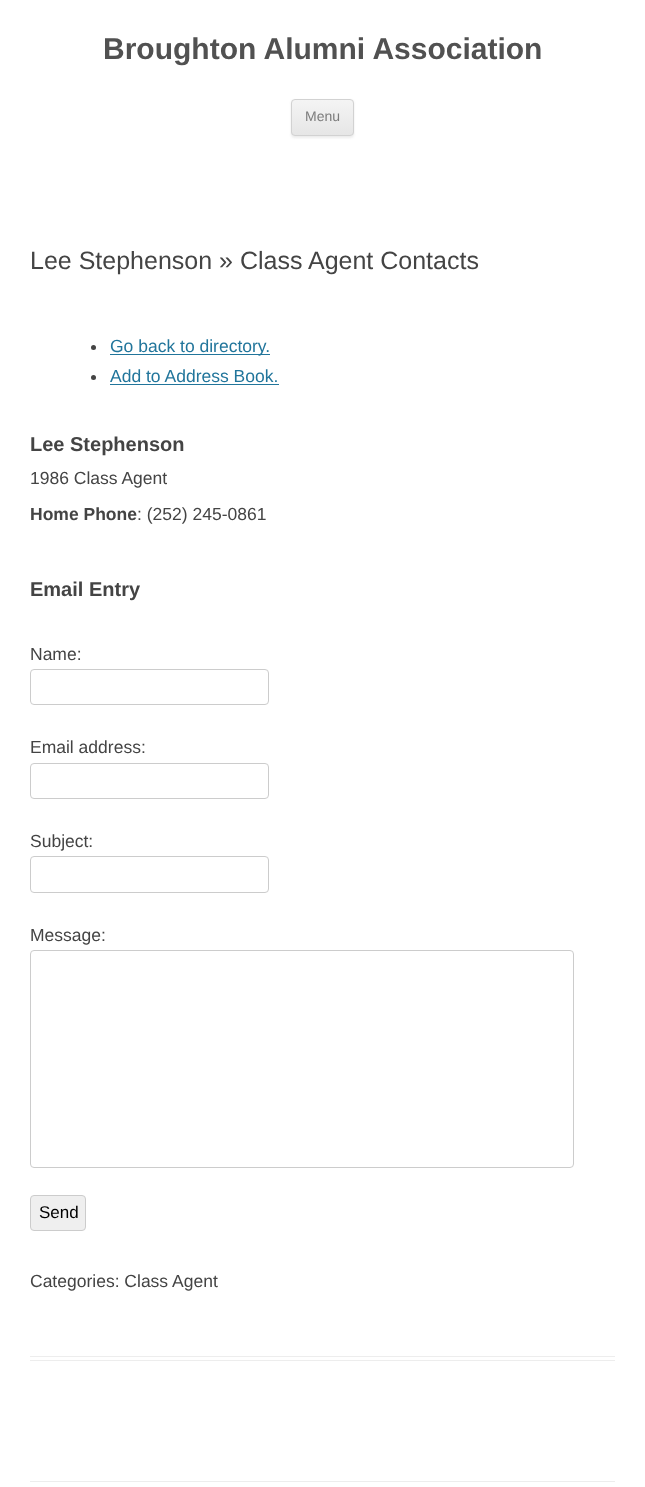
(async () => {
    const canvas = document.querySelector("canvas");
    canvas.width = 645;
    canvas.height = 1487;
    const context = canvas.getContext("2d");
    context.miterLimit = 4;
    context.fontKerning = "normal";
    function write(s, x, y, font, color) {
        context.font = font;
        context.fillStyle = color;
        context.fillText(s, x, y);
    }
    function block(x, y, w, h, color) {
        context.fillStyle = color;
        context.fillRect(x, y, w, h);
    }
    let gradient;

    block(0, 0, 645, 1487, "rgb(255, 255, 255)");
    write("Broughton Alumni Association", 103, 59, "bold 30px Liberation Sans", "rgb(81, 81, 81)");
    context.fillStyle = "rgba(64, 64, 64, 0.1)";
    context.filter = "blur(1px)";
    context.beginPath();
    context.roundRect(291, 100, 63, 38, 4);
    context.fill();
    context.filter = "none";
    context.save();
    context.beginPath();
    context.roundRect(291, 99, 63, 37, 4);
    context.clip();
    gradient = context.createLinearGradient(323, 100, 323, 135);
    gradient.addColorStop(0, "rgb(244, 244, 244)");
    gradient.addColorStop(1, "rgb(230, 230, 230)");
    context.fillStyle = gradient;
    context.fillRect(291, 100, 63, 35);
    context.restore();
    context.beginPath();
    context.roundRect(291.5, 99.5, 62, 36, 3.5);
    context.strokeStyle = "rgb(210, 210, 210)";
    context.stroke();
    write("Menu", 305, 121, "14px Liberation Sans", "rgb(124, 124, 124)");
    block(30, 1356, 585, 1, "rgb(237, 237, 237)");
    block(30, 1360, 585, 1, "rgb(237, 237, 237)");
    write("Lee Stephenson » Class Agent Contacts", 30, 269, "25px Liberation Sans", "rgb(68, 68, 68)");
    context.beginPath();
    context.arc(93.5, 347.5, 2.5, 0, Math.PI * 2);
    context.fill();
    block(110, 354, 160, 1, "rgb(33, 117, 155)");
    write("Go back to directory.", 110, 352, "17.5px Liberation Sans", "rgb(33, 117, 155)");
    context.fillStyle = "rgb(68, 68, 68)";
    context.beginPath();
    context.arc(93.5, 377.5, 2.5, 0, Math.PI * 2);
    context.fill();
    write("Add to Address Book.", 110, 382, "17.5px Liberation Sans", "rgb(33, 117, 155)");
    block(110, 384, 169, 1, "rgb(33, 117, 155)");
    write("Lee Stephenson", 30, 451, "bold 20px Liberation Sans", "rgb(68, 68, 68)");
    write("1986 Class Agent", 30, 484, "17.5px Liberation Sans", "rgb(68, 68, 68)");
    write("Home Phone", 30, 520, "bold 17.5px Liberation Sans", "rgb(68, 68, 68)");
    write(": (252) 245-0861", 137, 520, "17.5px Liberation Sans", "rgb(68, 68, 68)");
    write("Email Entry", 30, 596, "bold 20px Liberation Sans", "rgb(68, 68, 68)");
    write("Name:", 30, 660, "17.5px Liberation Sans", "rgb(68, 68, 68)");
    context.beginPath();
    context.roundRect(30.5, 669.5, 238, 35, 3.5);
    context.strokeStyle = "rgb(204, 204, 204)";
    context.stroke();
    write("Email address:", 30, 753, "17.5px Liberation Sans", "rgb(68, 68, 68)");
    context.beginPath();
    context.roundRect(30.5, 763.5, 238, 35, 3.5);
    context.stroke();
    write("Subject:", 30, 847, "17.5px Liberation Sans", "rgb(68, 68, 68)");
    context.beginPath();
    context.roundRect(30.5, 856.5, 238, 36, 3.5);
    context.stroke();
    write("Message:", 30, 941, "17.5px Liberation Sans", "rgb(68, 68, 68)");
    context.beginPath();
    context.roundRect(30.5, 950.5, 543, 217, 3.5);
    context.stroke();
    context.fillStyle = "rgb(239, 239, 239)";
    context.beginPath();
    context.roundRect(30.5, 1195.5, 55, 35, 3.5);
    context.fill();
    context.stroke();
    write("Send", 39, 1218, "17px Liberation Sans", "rgb(0, 0, 0)");
    write("Categories: Class Agent", 30, 1287, "17.5px Liberation Sans", "rgb(68, 68, 68)");
    block(30, 1481, 585, 1, "rgb(237, 237, 237)");
})();
